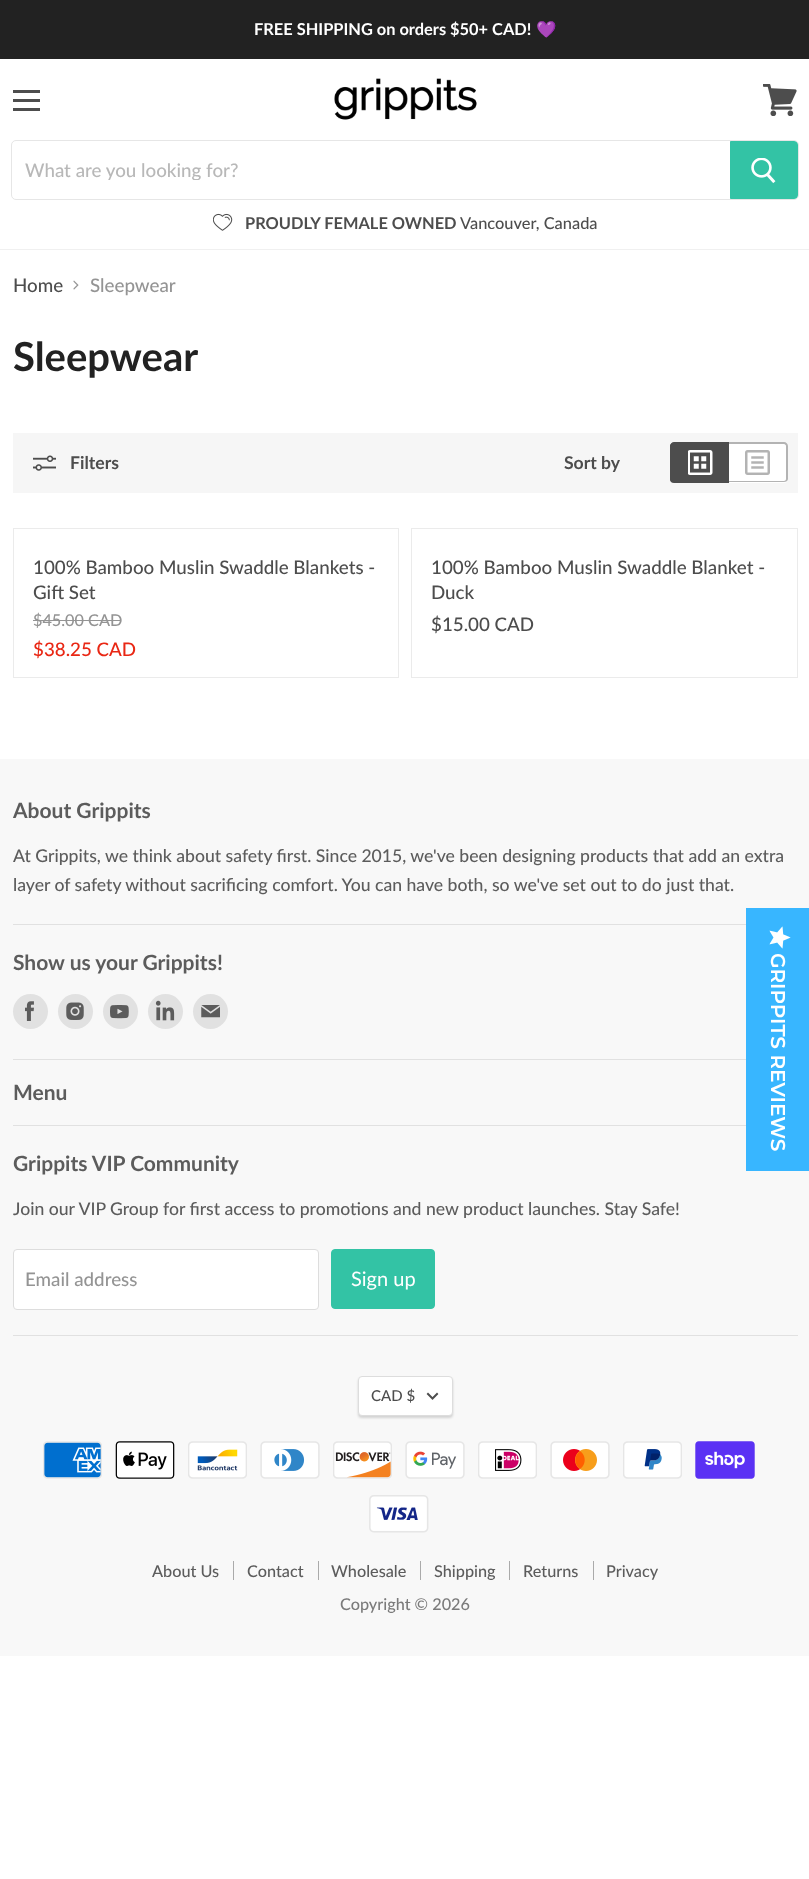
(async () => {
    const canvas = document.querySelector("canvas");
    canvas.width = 809;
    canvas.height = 1879;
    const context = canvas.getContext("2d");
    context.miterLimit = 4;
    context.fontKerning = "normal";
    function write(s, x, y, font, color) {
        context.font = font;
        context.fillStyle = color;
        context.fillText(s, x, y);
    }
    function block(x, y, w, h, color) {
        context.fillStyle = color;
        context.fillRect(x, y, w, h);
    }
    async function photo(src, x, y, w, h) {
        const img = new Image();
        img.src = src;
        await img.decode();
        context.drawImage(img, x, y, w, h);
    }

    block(0, 0, 809, 1879, "rgb(255, 255, 255)");
    block(0, 0, 809, 59, "rgb(34, 34, 34)");
    write("FREE SHIPPING on orders $50+ CAD!", 254, 35, "bold 16.4px Lato", "rgb(255, 255, 255)");
    write("💜", 536, 35, "bold 16.4px Noto Color Emoji", "rgb(255, 255, 255)");
    context.fillStyle = "rgba(0, 0, 0, 0.06)";
    context.filter = "blur(0.5px)";
    context.beginPath();
    context.rect(0, 60, 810, 190);
    context.fill();
    context.filter = "none";
    block(0, 60, 809, 189, "rgb(255, 255, 255)");
    block(13, 90, 27, 3, "rgb(77, 77, 77)");
    block(13, 99, 27, 3, "rgb(77, 77, 77)");
    block(13, 108, 27, 3, "rgb(77, 77, 77)");
    await photo("media/1.png", 763, 84, 34, 32);
    await photo("media/2.png", 334, 78, 143, 42);
    context.beginPath();
    context.roundRect(11.5, 140.5, 787, 59, 4.5);
    context.strokeStyle = "rgb(230, 230, 230)";
    context.stroke();
    context.save();
    context.beginPath();
    context.rect(25, 158, 693, 22);
    context.clip();
    write("What are you looking for?", 25, 177, "500 18.75px Lato", "rgb(184, 184, 184)");
    context.restore();
    context.fillStyle = "rgb(51, 195, 165)";
    context.beginPath();
    context.roundRect(730.5, 141.5, 67, 57, [0, 3.5, 3.5, 0]);
    context.fill();
    context.strokeStyle = "rgb(51, 195, 165)";
    context.stroke();
    await photo("media/3.png", 751, 158, 25, 26);
    await photo("media/4.png", 213, 213, 20, 18);
    write("PROUDLY FEMALE OWNED", 245, 229, "bold 16.4px Lato", "rgb(77, 77, 77)");
    write("Vancouver, Canada", 460, 229, "500 16.4px Lato", "rgb(77, 77, 77)");
    write("Home", 13, 292, "500 18.75px Lato", "rgb(77, 77, 77)");
    await photo("media/5.png", 73, 280, 6, 10);
    write("Sleepwear", 90, 292, "500 18.75px Lato", "rgb(148, 148, 148)");
    write("Sleepwear", 13, 371, "bold 40px Lato", "rgb(34, 34, 34)");
    block(13, 433, 785, 60, "rgb(246, 246, 246)");
    await photo("media/6.png", 33, 455, 23, 16);
    write("Filters", 70, 469, "bold 17.6px Lato", "rgb(77, 77, 77)");
    write("Sort by", 564, 469, "bold 17.6px Lato", "rgb(77, 77, 77)");
    context.beginPath();
    context.roundRect(670, 443, 59, 40, [4, 0, 0, 4]);
    context.fill();
    context.beginPath();
    context.moveTo(674, 442);
    context.lineTo(729, 442);
    context.lineTo(729, 482);
    context.lineTo(674, 482);
    context.bezierCurveTo(672, 482, 670, 481, 670, 479);
    context.lineTo(670, 446);
    context.bezierCurveTo(670, 444, 672, 442, 674, 442);
    context.closePath();
    context.moveTo(674, 444);
    context.lineTo(729, 444);
    context.lineTo(729, 481);
    context.lineTo(674, 481);
    context.bezierCurveTo(672, 481, 671, 480, 671, 479);
    context.lineTo(671, 446);
    context.bezierCurveTo(671, 445, 672, 444, 674, 444);
    context.closePath();
    context.fill("evenodd");
    await photo("media/7.png", 688, 450, 25, 25);
    context.fillStyle = "rgb(255, 255, 255)";
    context.beginPath();
    context.roundRect(729, 443, 59, 40, [0, 4, 4, 0]);
    context.fill();
    context.fillStyle = "rgb(179, 179, 179)";
    context.beginPath();
    context.moveTo(729, 442);
    context.lineTo(784, 442);
    context.bezierCurveTo(786, 442, 788, 444, 788, 446);
    context.lineTo(788, 479);
    context.bezierCurveTo(788, 481, 786, 482, 784, 482);
    context.lineTo(729, 482);
    context.closePath();
    context.moveTo(729, 444);
    context.lineTo(784, 444);
    context.bezierCurveTo(785, 444, 786, 445, 786, 446);
    context.lineTo(786, 479);
    context.bezierCurveTo(786, 480, 785, 481, 784, 481);
    context.lineTo(729, 481);
    context.closePath();
    context.fill("evenodd");
    await photo("media/8.png", 745, 450, 25, 25);
    context.strokeStyle = "rgb(235, 235, 235)";
    context.strokeRect(13.5, 528.5, 385, 149);
    write("100% Bamboo Muslin Swaddle Blankets -", 33, 574, "500 18.75px Lato", "rgb(77, 77, 77)");
    write("Gift Set", 33, 599, "500 18.75px Lato", "rgb(77, 77, 77)");
    write("$45.00 CAD", 33, 626, "500 16.25px Lato", "rgb(148, 148, 148)");
    block(33, 620, 88, 1, "rgb(148, 148, 148)");
    write("$38.25 CAD", 33, 656, "500 18.75px Lato", "rgb(233, 39, 20)");
    context.strokeRect(411.5, 528.5, 386, 149);
    write("100% Bamboo Muslin Swaddle Blanket -", 431, 574, "500 18.75px Lato", "rgb(77, 77, 77)");
    write("Duck", 431, 599, "500 18.75px Lato", "rgb(77, 77, 77)");
    write("$15.00 CAD", 431, 631, "500 18.75px Lato", "rgb(77, 77, 77)");
    block(0, 759, 809, 897, "rgb(248, 248, 248)");
    block(13, 924, 733, 1, "rgb(225, 225, 225)");
    write("About Grippits", 13, 818, "bold 21px Lato", "rgb(92, 92, 92)");
    write("At Grippits, we think about safety first. Since 2015, we've been designing products that add an extra", 13, 862, "500 17.6px Lato", "rgb(92, 92, 92)");
    write("layer of safety without sacrificing comfort. You can have both, so we've set out to do just that.", 13, 891, "500 17.6px Lato", "rgb(92, 92, 92)");
    block(13, 1059, 733, 1, "rgb(225, 225, 225)");
    write("Show us your Grippits!", 13, 970, "bold 21px Lato", "rgb(92, 92, 92)");
    context.fillStyle = "rgb(225, 225, 225)";
    context.beginPath();
    context.arc(30.5, 1011.5, 17.5, 0, Math.PI * 2);
    context.fill();
    await photo("media/9.png", 25, 1001, 9, 20);
    context.beginPath();
    context.arc(75.5, 1011.5, 17.5, 0, Math.PI * 2);
    context.fill();
    await photo("media/10.png", 66, 1002, 18, 18);
    context.beginPath();
    context.arc(120.5, 1011.5, 17.5, 0, Math.PI * 2);
    context.fill();
    await photo("media/11.png", 110, 1005, 19, 14);
    context.beginPath();
    context.arc(165.5, 1011.5, 17.5, 0, Math.PI * 2);
    context.fill();
    await photo("media/12.png", 155, 1000, 20, 21);
    context.beginPath();
    context.arc(210.5, 1011.5, 17.5, 0, Math.PI * 2);
    context.fill();
    await photo("media/13.png", 201, 1005, 19, 13);
    block(13, 1125, 733, 1, "rgb(225, 225, 225)");
    write("Menu", 13, 1100, "bold 21px Lato", "rgb(92, 92, 92)");
    block(13, 1335, 785, 1, "rgb(225, 225, 225)");
    write("Grippits VIP Community", 13, 1171, "bold 21px Lato", "rgb(92, 92, 92)");
    write("Join our VIP Group for first access to promotions and new product launches. Stay Safe!", 13, 1215, "500 17.6px Lato", "rgb(92, 92, 92)");
    context.fillStyle = "rgb(255, 255, 255)";
    context.beginPath();
    context.roundRect(13.5, 1249.5, 305, 60, 3.5);
    context.fill();
    context.strokeStyle = "rgb(221, 221, 221)";
    context.stroke();
    write("Email address", 25, 1286, "500 18.75px Lato", "rgb(148, 148, 148)");
    context.fillStyle = "rgb(51, 195, 165)";
    context.beginPath();
    context.roundRect(331.5, 1249.5, 103, 59, 3.5);
    context.fill();
    context.strokeStyle = "rgb(51, 195, 165)";
    context.stroke();
    write("Sign up", 351, 1286, "20px Lato", "rgb(255, 255, 255)");
    context.fillStyle = "rgba(0, 0, 0, 0.15)";
    context.filter = "blur(1px)";
    context.beginPath();
    context.roundRect(358, 1378, 95, 40, 4);
    context.fill();
    context.filter = "none";
    context.fillStyle = "rgb(255, 255, 255)";
    context.beginPath();
    context.roundRect(358.5, 1376.5, 94, 39, 3.5);
    context.fill();
    context.strokeStyle = "rgb(221, 221, 221)";
    context.stroke();
    write("CAD $", 371, 1401, "500 15px Lato", "rgb(77, 77, 77)");
    context.beginPath();
    context.moveTo(432.5, 1398.5);
    context.lineTo(437, 1394);
    context.moveTo(432.5, 1398.5);
    context.lineTo(428, 1394);
    context.strokeStyle = "rgb(77, 77, 77)";
    context.lineWidth = 2;
    context.lineCap = "square";
    context.stroke();
    await photo("media/14.png", 43, 1441, 59, 38);
    await photo("media/15.png", 115, 1441, 60, 38);
    await photo("media/16.png", 188, 1441, 59, 38);
    await photo("media/17.png", 260, 1441, 60, 38);
    await photo("media/18.png", 333, 1441, 59, 38);
    await photo("media/19.png", 405, 1441, 60, 38);
    await photo("media/20.png", 478, 1441, 59, 38);
    await photo("media/21.png", 550, 1441, 60, 38);
    await photo("media/22.png", 623, 1441, 59, 38);
    await photo("media/23.png", 695, 1441, 60, 38);
    await photo("media/24.png", 369, 1495, 60, 38);
    block(233, 1561, 1, 19, "rgb(170, 170, 170)");
    write("About Us", 152, 1577, "500 16.25px Lato", "rgb(92, 92, 92)");
    block(318, 1561, 1, 19, "rgb(170, 170, 170)");
    write("Contact", 247, 1577, "500 16.25px Lato", "rgb(92, 92, 92)");
    block(420, 1561, 1, 19, "rgb(170, 170, 170)");
    write("Wholesale", 331, 1577, "500 16.25px Lato", "rgb(92, 92, 92)");
    block(509, 1561, 1, 19, "rgb(170, 170, 170)");
    write("Shipping", 434, 1577, "500 16.25px Lato", "rgb(92, 92, 92)");
    block(593, 1561, 1, 19, "rgb(170, 170, 170)");
    write("Returns", 523, 1577, "500 16.25px Lato", "rgb(92, 92, 92)");
    write("Privacy", 606, 1577, "500 16.25px Lato", "rgb(92, 92, 92)");
    write("Copyright © 2026", 340, 1610, "500 16.25px Lato", "rgb(123, 123, 123)");
    block(746, 908, 63, 263, "rgb(56, 182, 255)");
    await photo("media/25.png", 769, 926, 22, 23);
    context.font = "100 20px Montserrat";
    context.fillStyle = "rgb(255, 255, 255)";
    context.save();
    context.translate(771, 953);
    context.rotate(90 * Math.PI / 180);
    context.fillText("GRIPPITS REVIEWS", 0, 0);
    context.restore();
})();
